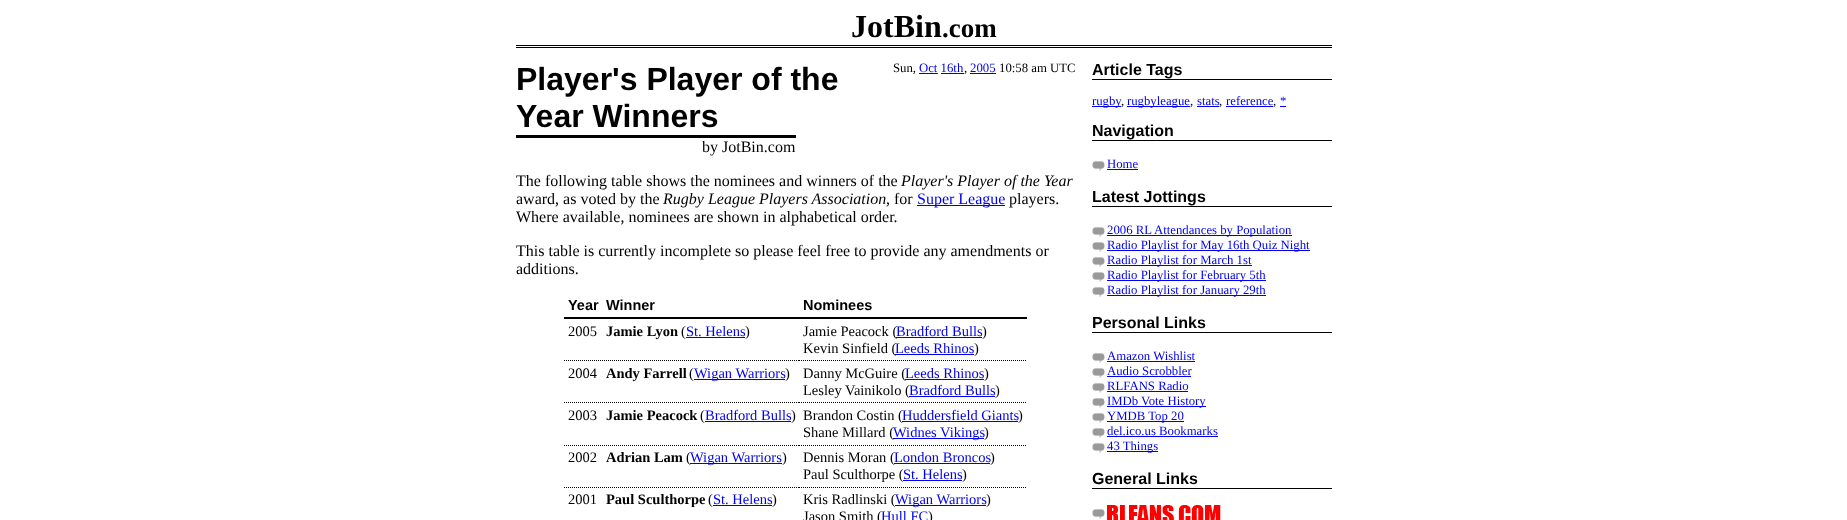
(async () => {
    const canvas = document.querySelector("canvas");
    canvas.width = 1847;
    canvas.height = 520;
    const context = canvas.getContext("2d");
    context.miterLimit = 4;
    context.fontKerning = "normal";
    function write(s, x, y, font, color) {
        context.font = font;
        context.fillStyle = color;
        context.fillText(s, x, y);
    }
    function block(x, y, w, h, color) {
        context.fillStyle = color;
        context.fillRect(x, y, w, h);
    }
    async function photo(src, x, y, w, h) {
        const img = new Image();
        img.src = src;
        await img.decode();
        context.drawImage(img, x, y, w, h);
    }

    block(0, 0, 1847, 520, "rgb(255, 255, 255)");
    block(516, 45, 816, 1, "rgb(0, 0, 0)");
    block(516, 47, 816, 1, "rgb(0, 0, 0)");
    write("JotBin", 851, 37, "bold 32px Liberation Serif", "rgb(0, 0, 0)");
    write(".com", 942, 37, "bold 27px Liberation Serif", "rgb(0, 0, 0)");
    write("Player's Player of the", 516, 90, "bold 32px Liberation Sans", "rgb(0, 0, 0)");
    write("Year Winners", 516, 127, "bold 32px Liberation Sans", "rgb(0, 0, 0)");
    block(516, 135, 280, 3, "rgb(0, 0, 0)");
    write("by JotBin.com", 702, 152, "16px Liberation Serif", "rgb(0, 0, 0)");
    write("Sun,", 893, 72, "12.75px Liberation Serif", "rgb(0, 0, 0)");
    write("Oct 16th", 919, 72, "12.75px Liberation Serif", "rgb(0, 0, 238)");
    block(919, 73, 19, 1, "rgb(0, 0, 238)");
    write(",", 964, 72, "12.75px Liberation Serif", "rgb(0, 0, 0)");
    write("2005", 970, 72, "12.75px Liberation Serif", "rgb(0, 0, 238)");
    block(970, 73, 26, 1, "rgb(0, 0, 238)");
    write("10:58 am UTC", 999, 72, "12.75px Liberation Serif", "rgb(0, 0, 0)");
    block(941, 73, 23, 1, "rgb(0, 0, 238)");
    write("The following table shows the nominees and winners of the", 516, 186, "16px Liberation Serif", "rgb(0, 0, 0)");
    write("Player's Player of the Year", 901, 186, "italic 16px Liberation Serif", "rgb(0, 0, 0)");
    write("award, as voted by the", 516, 204, "16px Liberation Serif", "rgb(0, 0, 0)");
    write("Rugby League Players Association", 663, 204, "italic 16px Liberation Serif", "rgb(0, 0, 0)");
    write(", for", 886, 204, "16px Liberation Serif", "rgb(0, 0, 0)");
    block(917, 205, 88, 1, "rgb(0, 0, 238)");
    write("Super League", 917, 204, "16px Liberation Serif", "rgb(0, 0, 238)");
    write("players.", 1009, 204, "16px Liberation Serif", "rgb(0, 0, 0)");
    write("Where available, nominees are shown in alphabetical order.", 516, 222, "16px Liberation Serif", "rgb(0, 0, 0)");
    write("This table is currently incomplete so please feel free to provide any amendments or", 516, 256, "16px Liberation Serif", "rgb(0, 0, 0)");
    write("additions.", 516, 274, "16px Liberation Serif", "rgb(0, 0, 0)");
    block(564, 317, 463, 2, "rgb(0, 0, 0)");
    write("Year", 568, 310, "bold 14.5px Liberation Sans", "rgb(0, 0, 0)");
    write("Winner", 606, 310, "bold 14.5px Liberation Sans", "rgb(0, 0, 0)");
    write("Nominees", 803, 310, "bold 14.5px Liberation Sans", "rgb(0, 0, 0)");
    context.beginPath();
    context.moveTo(564, 360.5);
    context.lineTo(602, 360.5);
    context.strokeStyle = "rgb(0, 0, 0)";
    context.setLineDash([1, 1]);
    context.stroke();
    write("2005", 568, 336, "14.5px Liberation Serif", "rgb(0, 0, 0)");
    context.beginPath();
    context.moveTo(602, 360.5);
    context.lineTo(799, 360.5);
    context.stroke();
    write("Jamie Lyon", 606, 336, "bold 14.5px Liberation Serif", "rgb(0, 0, 0)");
    write("(", 681, 336, "14.5px Liberation Serif", "rgb(0, 0, 0)");
    write("St. Helens", 686, 336, "14.5px Liberation Serif", "rgb(0, 0, 238)");
    block(686, 337, 59, 1, "rgb(0, 0, 238)");
    write(")", 745, 336, "14.5px Liberation Serif", "rgb(0, 0, 0)");
    context.beginPath();
    context.moveTo(799, 360.5);
    context.lineTo(1027, 360.5);
    context.stroke();
    write("Jamie Peacock (", 803, 336, "14.5px Liberation Serif", "rgb(0, 0, 0)");
    write("Bradford Bulls", 896, 336, "14.5px Liberation Serif", "rgb(0, 0, 238)");
    block(896, 337, 86, 1, "rgb(0, 0, 238)");
    write(")", 982, 336, "14.5px Liberation Serif", "rgb(0, 0, 0)");
    write("Kevin Sinfield (", 803, 353, "14.5px Liberation Serif", "rgb(0, 0, 0)");
    write("Leeds Rhinos", 895, 353, "14.5px Liberation Serif", "rgb(0, 0, 238)");
    block(895, 354, 79, 1, "rgb(0, 0, 238)");
    write(")", 974, 353, "14.5px Liberation Serif", "rgb(0, 0, 0)");
    context.beginPath();
    context.moveTo(564, 402.5);
    context.lineTo(602, 402.5);
    context.stroke();
    write("2004", 568, 378, "14.5px Liberation Serif", "rgb(0, 0, 0)");
    context.beginPath();
    context.moveTo(602, 402.5);
    context.lineTo(799, 402.5);
    context.stroke();
    write("Andy Farrell", 606, 378, "bold 14.5px Liberation Serif", "rgb(0, 0, 0)");
    write("(", 689, 378, "14.5px Liberation Serif", "rgb(0, 0, 0)");
    block(694, 379, 91, 1, "rgb(0, 0, 238)");
    write("Wigan Warriors", 694, 378, "14.5px Liberation Serif", "rgb(0, 0, 238)");
    write(")", 785, 378, "14.5px Liberation Serif", "rgb(0, 0, 0)");
    context.beginPath();
    context.moveTo(799, 402.5);
    context.lineTo(1027, 402.5);
    context.stroke();
    write("Danny McGuire (", 803, 378, "14.5px Liberation Serif", "rgb(0, 0, 0)");
    write("Leeds Rhinos", 905, 378, "14.5px Liberation Serif", "rgb(0, 0, 238)");
    block(905, 379, 79, 1, "rgb(0, 0, 238)");
    write(")", 984, 378, "14.5px Liberation Serif", "rgb(0, 0, 0)");
    write("Lesley Vainikolo (", 803, 395, "14.5px Liberation Serif", "rgb(0, 0, 0)");
    write("Bradford Bulls", 909, 395, "14.5px Liberation Serif", "rgb(0, 0, 238)");
    block(909, 396, 86, 1, "rgb(0, 0, 238)");
    write(")", 995, 395, "14.5px Liberation Serif", "rgb(0, 0, 0)");
    context.beginPath();
    context.moveTo(564, 445.5);
    context.lineTo(602, 445.5);
    context.stroke();
    write("2003", 568, 420, "14.5px Liberation Serif", "rgb(0, 0, 0)");
    context.beginPath();
    context.moveTo(602, 445.5);
    context.lineTo(799, 445.5);
    context.stroke();
    write("Jamie Peacock", 606, 420, "bold 14.5px Liberation Serif", "rgb(0, 0, 0)");
    write("(", 700, 420, "14.5px Liberation Serif", "rgb(0, 0, 0)");
    write("Bradford Bulls", 705, 420, "14.5px Liberation Serif", "rgb(0, 0, 238)");
    block(705, 421, 86, 1, "rgb(0, 0, 238)");
    write(")", 791, 420, "14.5px Liberation Serif", "rgb(0, 0, 0)");
    context.beginPath();
    context.moveTo(799, 445.5);
    context.lineTo(1027, 445.5);
    context.stroke();
    write("Brandon Costin (", 803, 420, "14.5px Liberation Serif", "rgb(0, 0, 0)");
    write("Huddersfield Giants", 902, 420, "14.5px Liberation Serif", "rgb(0, 0, 238)");
    block(902, 421, 116, 1, "rgb(0, 0, 238)");
    write(")", 1018, 420, "14.5px Liberation Serif", "rgb(0, 0, 0)");
    write("Shane Millard (", 803, 437, "14.5px Liberation Serif", "rgb(0, 0, 0)");
    block(893, 438, 91, 1, "rgb(0, 0, 238)");
    write("Widnes Vikings", 893, 437, "14.5px Liberation Serif", "rgb(0, 0, 238)");
    write(")", 984, 437, "14.5px Liberation Serif", "rgb(0, 0, 0)");
    context.beginPath();
    context.moveTo(564, 487.5);
    context.lineTo(602, 487.5);
    context.stroke();
    write("2002", 568, 462, "14.5px Liberation Serif", "rgb(0, 0, 0)");
    context.beginPath();
    context.moveTo(602, 487.5);
    context.lineTo(799, 487.5);
    context.stroke();
    write("Adrian Lam", 606, 462, "bold 14.5px Liberation Serif", "rgb(0, 0, 0)");
    write("(", 686, 462, "14.5px Liberation Serif", "rgb(0, 0, 0)");
    block(690, 463, 92, 1, "rgb(0, 0, 238)");
    write("Wigan Warriors", 690, 462, "14.5px Liberation Serif", "rgb(0, 0, 238)");
    write(")", 782, 462, "14.5px Liberation Serif", "rgb(0, 0, 0)");
    context.beginPath();
    context.moveTo(799, 487.5);
    context.lineTo(1027, 487.5);
    context.stroke();
    write("Dennis Moran (", 803, 462, "14.5px Liberation Serif", "rgb(0, 0, 0)");
    write("London Broncos", 894, 462, "14.5px Liberation Serif", "rgb(0, 0, 238)");
    block(894, 463, 96, 1, "rgb(0, 0, 238)");
    write(")", 990, 462, "14.5px Liberation Serif", "rgb(0, 0, 0)");
    write("Paul Sculthorpe (", 803, 479, "14.5px Liberation Serif", "rgb(0, 0, 0)");
    write("St. Helens", 903, 479, "14.5px Liberation Serif", "rgb(0, 0, 238)");
    block(903, 480, 59, 1, "rgb(0, 0, 238)");
    write(")", 962, 479, "14.5px Liberation Serif", "rgb(0, 0, 0)");
    write("2001", 568, 504, "14.5px Liberation Serif", "rgb(0, 0, 0)");
    write("Paul Sculthorpe", 606, 504, "bold 14.5px Liberation Serif", "rgb(0, 0, 0)");
    write("(", 708, 504, "14.5px Liberation Serif", "rgb(0, 0, 0)");
    write("St. Helens", 713, 504, "14.5px Liberation Serif", "rgb(0, 0, 238)");
    block(713, 505, 59, 1, "rgb(0, 0, 238)");
    write(")", 772, 504, "14.5px Liberation Serif", "rgb(0, 0, 0)");
    write("Kris Radlinski (", 803, 504, "14.5px Liberation Serif", "rgb(0, 0, 0)");
    block(895, 505, 91, 1, "rgb(0, 0, 238)");
    write("Wigan Warriors", 895, 504, "14.5px Liberation Serif", "rgb(0, 0, 238)");
    write(")", 986, 504, "14.5px Liberation Serif", "rgb(0, 0, 0)");
    write("Jason Smith (", 803, 521, "14.5px Liberation Serif", "rgb(0, 0, 0)");
    write("Hull FC", 881, 521, "14.5px Liberation Serif", "rgb(0, 0, 238)");
    write(")", 928, 521, "14.5px Liberation Serif", "rgb(0, 0, 0)");
    block(1092, 79, 240, 1, "rgb(0, 0, 0)");
    write("Article Tags", 1092, 75, "bold 16px Liberation Sans", "rgb(0, 0, 0)");
    block(1092, 106, 29, 1, "rgb(0, 0, 238)");
    write("rugby", 1092, 105, "12.75px Liberation Serif", "rgb(0, 0, 238)");
    block(1127, 106, 63, 1, "rgb(0, 0, 238)");
    write("rugbyleague", 1127, 105, "12.75px Liberation Serif", "rgb(0, 0, 238)");
    write("stats", 1197, 105, "12.75px Liberation Serif", "rgb(0, 0, 238)");
    block(1197, 106, 22, 1, "rgb(0, 0, 238)");
    write("reference", 1226, 105, "12.75px Liberation Serif", "rgb(0, 0, 238)");
    block(1226, 106, 47, 1, "rgb(0, 0, 238)");
    write("*", 1280, 105, "12.75px Liberation Serif", "rgb(0, 0, 238)");
    block(1280, 106, 6, 1, "rgb(0, 0, 238)");
    write(",", 1121, 105, "12.75px Liberation Serif", "rgb(0, 0, 0)");
    write(",", 1190, 105, "12.75px Liberation Serif", "rgb(0, 0, 0)");
    write(",", 1219, 105, "12.75px Liberation Serif", "rgb(0, 0, 0)");
    write(",", 1273, 105, "12.75px Liberation Serif", "rgb(0, 0, 0)");
    block(1092, 140, 240, 1, "rgb(0, 0, 0)");
    write("Navigation", 1092, 136, "bold 16px Liberation Sans", "rgb(0, 0, 0)");
    await photo("media/1.png", 1092, 161, 13, 10);
    write("Home", 1107, 168, "12.75px Liberation Serif", "rgb(0, 0, 238)");
    block(1107, 169, 31, 1, "rgb(0, 0, 238)");
    block(1092, 206, 240, 1, "rgb(0, 0, 0)");
    write("Latest Jottings", 1092, 202, "bold 16px Liberation Sans", "rgb(0, 0, 0)");
    await photo("media/1.png", 1092, 227, 13, 10);
    block(1107, 235, 185, 1, "rgb(0, 0, 238)");
    write("2006 RL Attendances by Population", 1107, 234, "12.75px Liberation Serif", "rgb(0, 0, 238)");
    await photo("media/1.png", 1092, 242, 13, 10);
    block(1107, 250, 203, 1, "rgb(0, 0, 238)");
    write("Radio Playlist for May 16th Quiz Night", 1107, 249, "12.75px Liberation Serif", "rgb(0, 0, 238)");
    await photo("media/1.png", 1092, 257, 13, 10);
    block(1107, 265, 145, 1, "rgb(0, 0, 238)");
    write("Radio Playlist for March 1st", 1107, 264, "12.75px Liberation Serif", "rgb(0, 0, 238)");
    await photo("media/1.png", 1092, 272, 13, 10);
    block(1107, 280, 159, 1, "rgb(0, 0, 238)");
    write("Radio Playlist for February 5th", 1107, 279, "12.75px Liberation Serif", "rgb(0, 0, 238)");
    await photo("media/1.png", 1092, 287, 13, 10);
    block(1107, 295, 159, 1, "rgb(0, 0, 238)");
    write("Radio Playlist for January 29th", 1107, 294, "12.75px Liberation Serif", "rgb(0, 0, 238)");
    block(1092, 332, 240, 1, "rgb(0, 0, 0)");
    write("Personal Links", 1092, 328, "bold 16px Liberation Sans", "rgb(0, 0, 0)");
    await photo("media/1.png", 1092, 353, 13, 10);
    write("Amazon Wishlist", 1107, 360, "12.75px Liberation Serif", "rgb(0, 0, 238)");
    block(1107, 361, 88, 1, "rgb(0, 0, 238)");
    await photo("media/1.png", 1092, 368, 13, 10);
    write("Audio Scrobbler", 1107, 375, "12.75px Liberation Serif", "rgb(0, 0, 238)");
    block(1107, 376, 84, 1, "rgb(0, 0, 238)");
    await photo("media/1.png", 1092, 383, 13, 10);
    write("RLFANS Radio", 1107, 390, "12.75px Liberation Serif", "rgb(0, 0, 238)");
    block(1107, 391, 81, 1, "rgb(0, 0, 238)");
    await photo("media/1.png", 1092, 398, 13, 10);
    block(1107, 406, 99, 1, "rgb(0, 0, 238)");
    write("IMDb Vote History", 1107, 405, "12.75px Liberation Serif", "rgb(0, 0, 238)");
    await photo("media/1.png", 1092, 413, 13, 10);
    block(1107, 421, 77, 1, "rgb(0, 0, 238)");
    write("YMDB Top 20", 1107, 420, "12.75px Liberation Serif", "rgb(0, 0, 238)");
    await photo("media/1.png", 1092, 428, 13, 10);
    write("del.ico.us Bookmarks", 1107, 435, "12.75px Liberation Serif", "rgb(0, 0, 238)");
    block(1107, 436, 111, 1, "rgb(0, 0, 238)");
    await photo("media/1.png", 1092, 443, 13, 10);
    block(1107, 451, 51, 1, "rgb(0, 0, 238)");
    write("43 Things", 1107, 450, "12.75px Liberation Serif", "rgb(0, 0, 238)");
    block(1092, 488, 240, 1, "rgb(0, 0, 0)");
    write("General Links", 1092, 484, "bold 16px Liberation Sans", "rgb(0, 0, 0)");
    await photo("media/1.png", 1092, 509, 13, 10);
    await photo("media/2.png", 1107, 505, 114, 15);
})();
